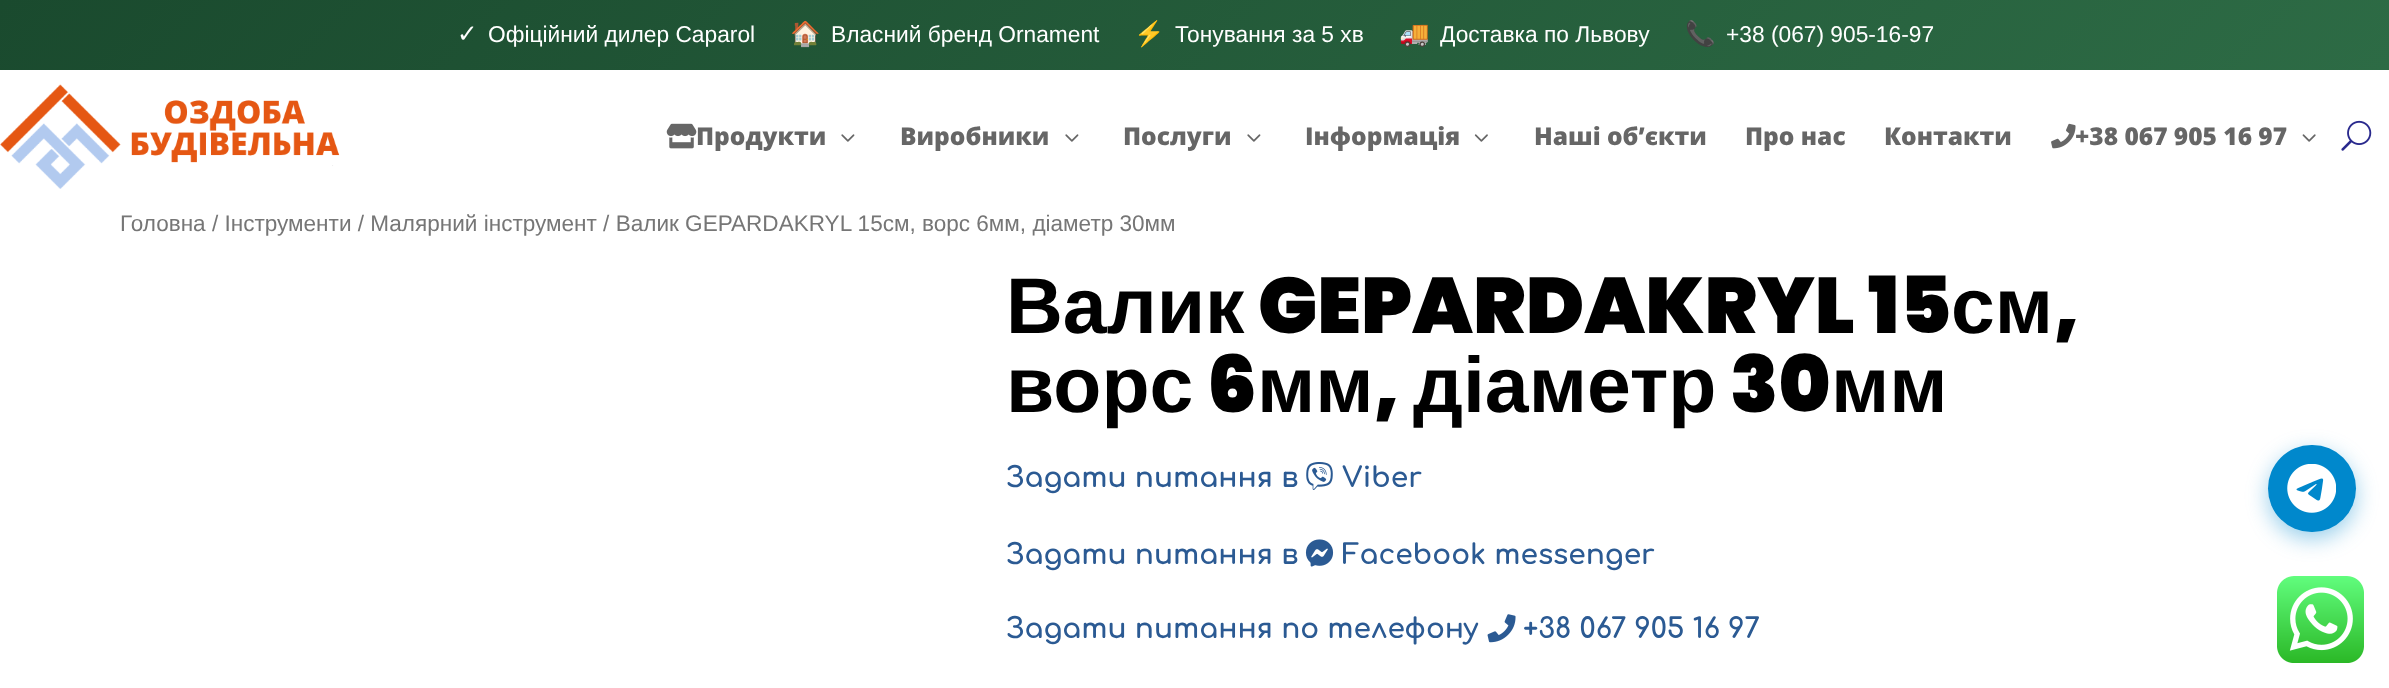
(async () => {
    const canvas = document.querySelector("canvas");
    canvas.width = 2389;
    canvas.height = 688;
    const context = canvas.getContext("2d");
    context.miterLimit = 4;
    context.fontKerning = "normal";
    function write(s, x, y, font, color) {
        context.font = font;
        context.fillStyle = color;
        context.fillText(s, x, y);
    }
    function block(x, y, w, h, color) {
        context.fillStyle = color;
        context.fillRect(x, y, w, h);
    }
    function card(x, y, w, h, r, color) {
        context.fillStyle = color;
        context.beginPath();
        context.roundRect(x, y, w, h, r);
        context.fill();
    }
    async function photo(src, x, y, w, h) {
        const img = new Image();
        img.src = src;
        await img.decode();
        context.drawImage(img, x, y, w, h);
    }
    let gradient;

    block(0, 0, 2389, 688, "rgb(255, 255, 255)");
    gradient = context.createLinearGradient(580, -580, 1810, 650);
    gradient.addColorStop(0, "rgb(26, 74, 46)");
    gradient.addColorStop(1, "rgb(45, 107, 69)");
    context.fillStyle = gradient;
    context.fillRect(0, 0, 2389, 70);
    write("✓", 457, 42, "24.5px DejaVu Sans", "rgb(255, 255, 255)");
    write("Офіційний дилер Caparol", 488, 42, "22.75px Liberation Sans", "rgb(255, 255, 255)");
    write("🏠", 790, 42, "24.5px Noto Color Emoji", "rgb(255, 255, 255)");
    write("Власний бренд Ornament", 831, 42, "22.75px Liberation Sans", "rgb(255, 255, 255)");
    write("⚡", 1134, 42, "24.5px Noto Color Emoji", "rgb(255, 255, 255)");
    write("Тонування за 5 хв", 1175, 42, "22.75px Liberation Sans", "rgb(255, 255, 255)");
    write("🚚", 1399, 42, "24.5px Noto Color Emoji", "rgb(255, 255, 255)");
    write("Доставка по Львову", 1440, 42, "22.75px Liberation Sans", "rgb(255, 255, 255)");
    write("📞", 1685, 42, "bold 24.5px Noto Color Emoji", "rgb(255, 255, 255)");
    write("+38 (067) 905-16-97", 1726, 42, "22.75px Liberation Sans", "rgb(255, 255, 255)");
    await photo("media/1.png", 0, 84, 340, 105);
    await photo("media/2.png", 666, 123, 31, 26);
    write("Продукти", 696, 145, "800 24.5px Open Sans", "rgb(102, 102, 102)");
    await photo("media/3.png", 841, 134, 14, 8);
    write("Виробники", 900, 145, "800 24.5px Open Sans", "rgb(102, 102, 102)");
    await photo("media/3.png", 1065, 134, 14, 8);
    write("Послуги", 1123, 145, "800 24.5px Open Sans", "rgb(102, 102, 102)");
    await photo("media/3.png", 1247, 134, 14, 8);
    write("Інформація", 1305, 145, "800 24.5px Open Sans", "rgb(102, 102, 102)");
    await photo("media/4.png", 1474, 134, 14, 8);
    write("Наші об’єкти", 1534, 145, "800 24.5px Open Sans", "rgb(102, 102, 102)");
    write("Про нас", 1745, 145, "800 24.5px Open Sans", "rgb(102, 102, 102)");
    write("Контакти", 1884, 145, "800 24.5px Open Sans", "rgb(102, 102, 102)");
    await photo("media/5.png", 2051, 123, 25, 26);
    write("+38 067 905 16 97", 2075, 145, "800 24.5px Open Sans", "rgb(102, 102, 102)");
    await photo("media/6.png", 2302, 134, 14, 8);
    await photo("media/7.png", 2341, 120, 31, 31);
    write("Головна / Інструменти / Малярний інструмент / Валик GEPARDAKRYL 15см, ворс 6мм, діаметр 30мм", 120, 231, "22.55px Liberation Sans", "rgb(118, 118, 118)");
    write("Валик", 1006, 333, "bold 78.75px Liberation Sans", "rgb(0, 0, 0)");
    write("GEPARDAKRYL 15", 1258, 333, "900 78.75px Poppins", "rgb(0, 0, 0)");
    write("см", 1951, 333, "bold 78.75px Liberation Sans", "rgb(0, 0, 0)");
    write(",", 2053, 333, "900 78.75px Poppins", "rgb(0, 0, 0)");
    write("ворс", 1006, 412, "bold 78.75px Liberation Sans", "rgb(0, 0, 0)");
    write("6", 1207, 412, "900 78.75px Poppins", "rgb(0, 0, 0)");
    write("мм", 1257, 412, "bold 78.75px Liberation Sans", "rgb(0, 0, 0)");
    write(",", 1373, 412, "900 78.75px Poppins", "rgb(0, 0, 0)");
    write("діаметр", 1413, 412, "bold 78.75px Liberation Sans", "rgb(0, 0, 0)");
    write("30", 1730, 412, "900 78.75px Poppins", "rgb(0, 0, 0)");
    write("мм", 1831, 412, "bold 78.75px Liberation Sans", "rgb(0, 0, 0)");
    write("Задати питання в", 1006, 487, "bold 28px Comfortaa", "rgb(43, 90, 147)");
    await photo("media/8.png", 1306, 462, 27, 28);
    write("Viber", 1342, 487, "bold 28px Comfortaa", "rgb(43, 90, 147)");
    write("Задати питання в", 1006, 564, "bold 28px Comfortaa", "rgb(43, 90, 147)");
    await photo("media/9.png", 1305, 539, 29, 28);
    write("Facebook messenger", 1342, 564, "bold 28px Comfortaa", "rgb(43, 90, 147)");
    write("Задати питання по телефону", 1006, 638, "bold 28px Comfortaa", "rgb(43, 90, 147)");
    await photo("media/10.png", 1487, 614, 29, 29);
    write("+38 067 905 16 97", 1523, 638, "bold 28px Comfortaa", "rgb(43, 90, 147)");
    context.fillStyle = "rgba(0, 136, 204, 0.4)";
    context.filter = "blur(10.5px)";
    context.beginPath();
    context.roundRect(2268, 452, 88, 87, 43.5);
    context.fill();
    context.filter = "none";
    card(2268, 445, 88, 87, 43.5, "rgb(0, 136, 204)");
    await photo("media/11.png", 2287, 464, 49, 49);
    await photo("media/12.png", 2277, 576, 87, 87);
})();
